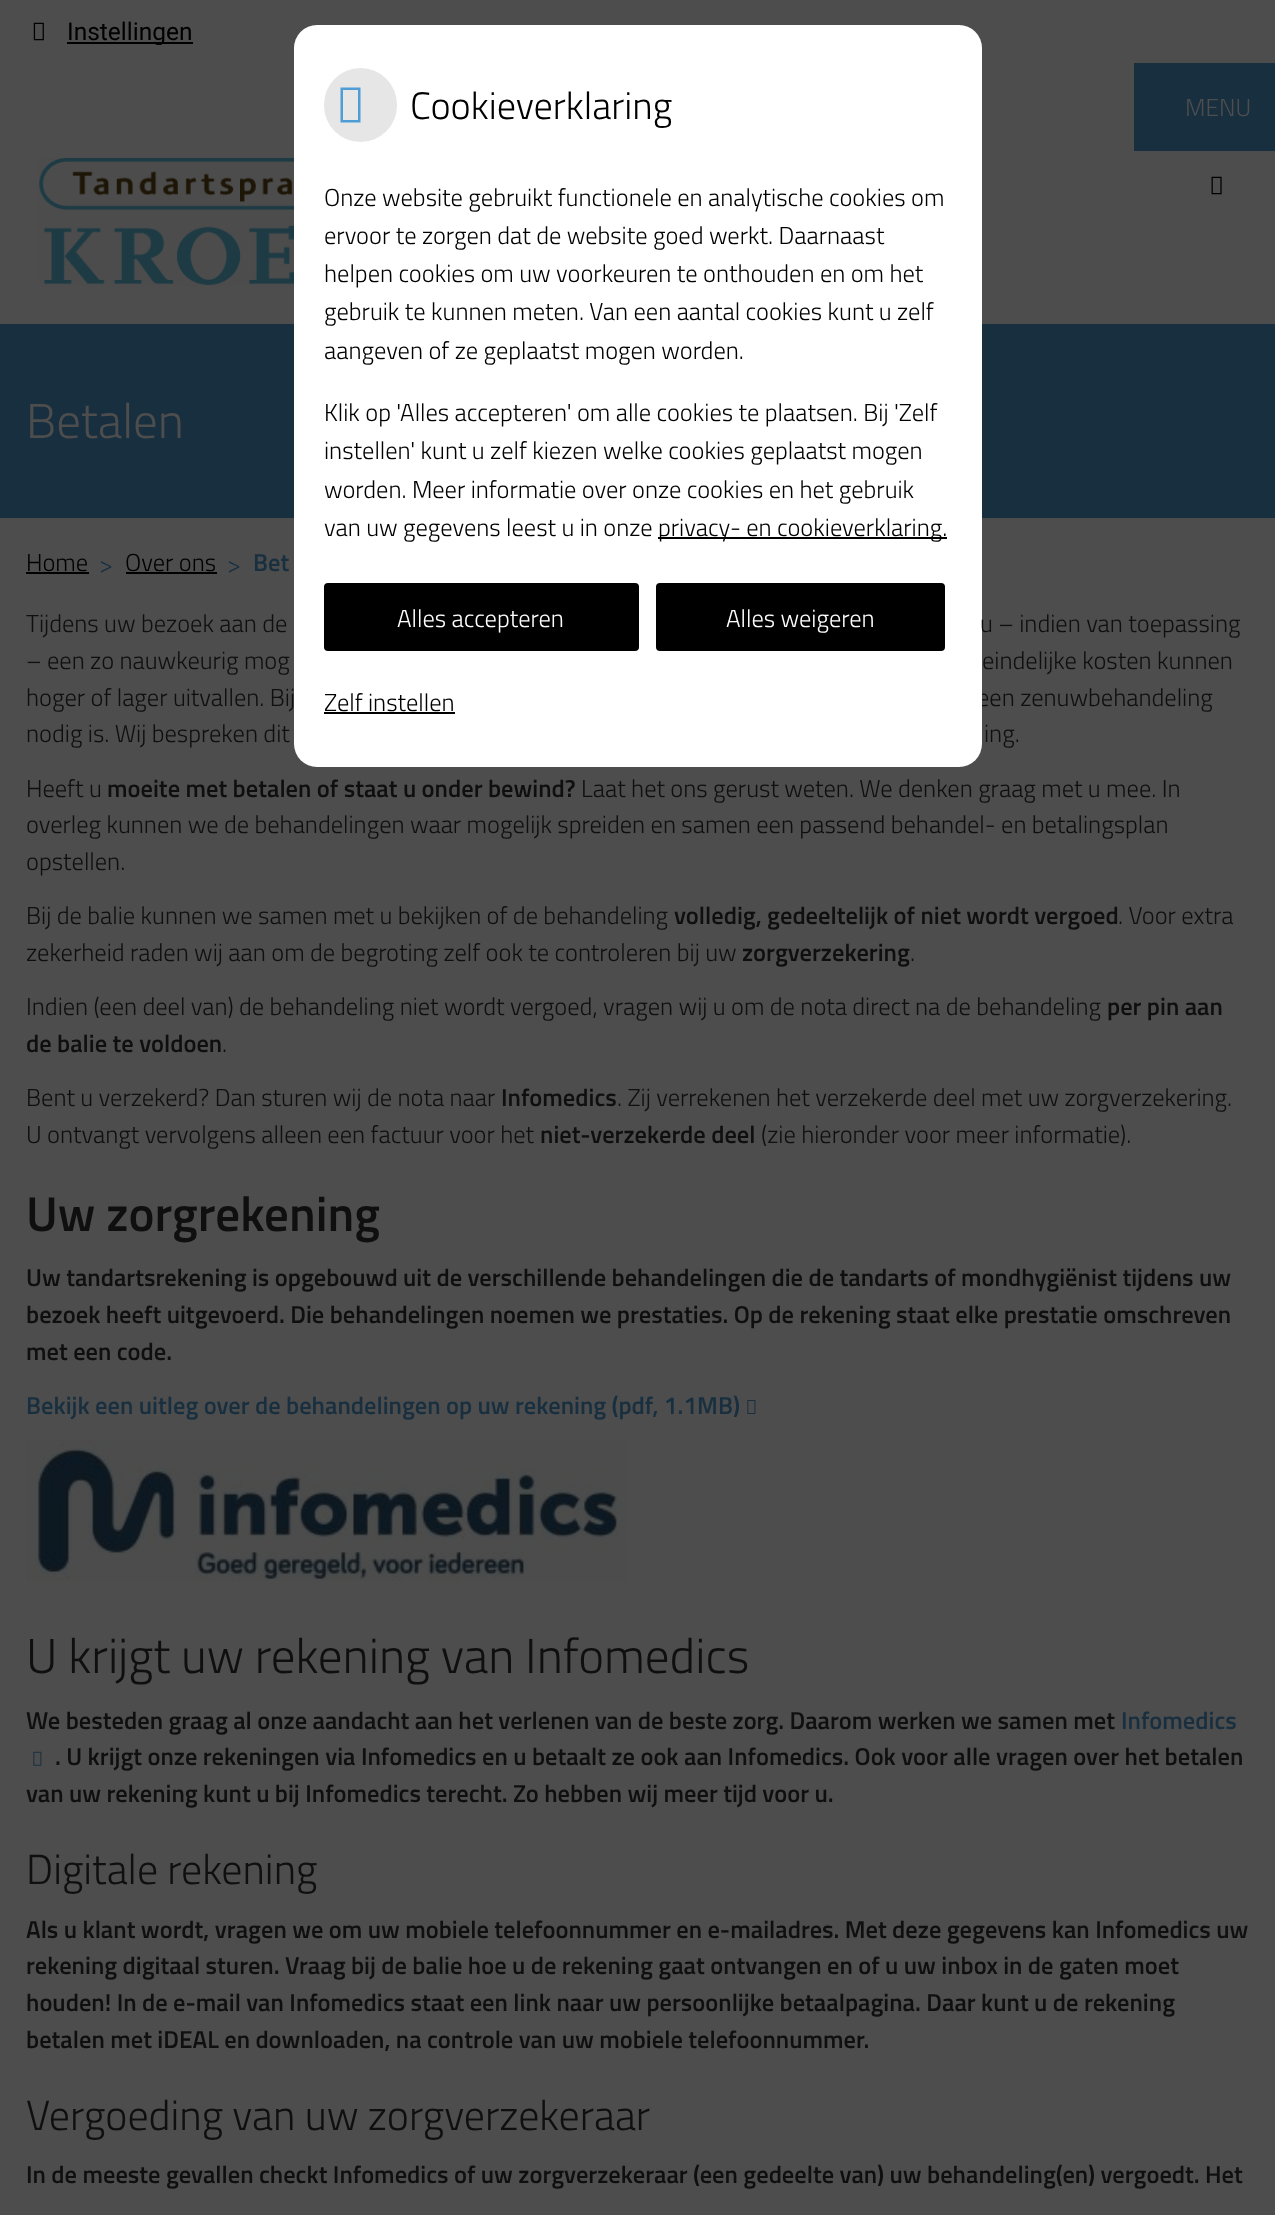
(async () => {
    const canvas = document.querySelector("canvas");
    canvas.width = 1275;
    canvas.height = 2215;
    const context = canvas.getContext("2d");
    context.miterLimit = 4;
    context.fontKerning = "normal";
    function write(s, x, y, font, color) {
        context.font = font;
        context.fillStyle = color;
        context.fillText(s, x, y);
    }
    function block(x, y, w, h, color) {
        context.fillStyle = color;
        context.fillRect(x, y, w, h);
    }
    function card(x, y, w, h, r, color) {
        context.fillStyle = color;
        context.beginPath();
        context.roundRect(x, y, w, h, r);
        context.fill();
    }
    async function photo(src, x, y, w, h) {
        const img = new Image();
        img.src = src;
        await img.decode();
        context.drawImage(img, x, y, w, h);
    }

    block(0, 0, 1275, 2215, "rgb(77, 77, 77)");
    await photo("media/1.png", 33, 22, 11, 19);
    block(67, 42, 126, 2, "rgb(0, 0, 0)");
    write("Instellingen", 67, 40, "24.5px Roboto", "rgb(0, 0, 0)");
    block(0, 324, 1275, 194, "rgb(24, 47, 64)");
    write("een zenuwbehandeling", 977, 706, "300 24.5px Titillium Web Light", "rgb(15, 15, 15)");
    card(294, 25, 688, 742, 23, "rgb(255, 255, 255)");
    card(324, 68, 73, 74, 36.5, "rgb(230, 230, 230)");
    context.fillStyle = "rgb(79, 157, 214)";
    context.beginPath();
    context.moveTo(340.5, 122.5);
    context.lineTo(340.5, 87.5);
    context.lineTo(360.5, 87.5);
    context.lineTo(360.5, 122.5);
    context.closePath();
    context.moveTo(343, 120);
    context.lineTo(358, 120);
    context.lineTo(358, 90);
    context.lineTo(343, 90);
    context.closePath();
    context.fill();
    write("Cookieverklaring", 410, 119, "300 38.25px Titillium Web Light", "rgb(0, 0, 0)");
    write("Onze website gebruikt functionele en analytische cookies om", 324, 206, "300 24.5px Titillium Web Light", "rgb(0, 0, 0)");
    write("ervoor te zorgen dat de website goed werkt. Daarnaast", 324, 244, "300 24.5px Titillium Web Light", "rgb(0, 0, 0)");
    write("helpen cookies om uw voorkeuren te onthouden en om het", 324, 282, "300 24.5px Titillium Web Light", "rgb(0, 0, 0)");
    write("gebruik te kunnen meten. Van een aantal cookies kunt u zelf", 324, 320, "300 24.5px Titillium Web Light", "rgb(0, 0, 0)");
    write("aangeven of ze geplaatst mogen worden.", 324, 359, "300 24.5px Titillium Web Light", "rgb(0, 0, 0)");
    write("Klik op 'Alles accepteren' om alle cookies te plaatsen. Bij 'Zelf", 324, 421, "300 24.5px Titillium Web Light", "rgb(0, 0, 0)");
    write("instellen' kunt u zelf kiezen welke cookies geplaatst mogen", 324, 459, "300 24.5px Titillium Web Light", "rgb(0, 0, 0)");
    write("worden. Meer informatie over onze cookies en het gebruik", 324, 498, "300 24.5px Titillium Web Light", "rgb(0, 0, 0)");
    write("van uw gegevens leest u in onze", 324, 536, "300 24.5px Titillium Web Light", "rgb(0, 0, 0)");
    block(658, 537, 289, 2, "rgb(0, 0, 0)");
    write("privacy- en cookieverklaring.", 658, 536, "300 24.5px Titillium Web Light", "rgb(0, 0, 0)");
    card(324, 583, 315, 68, 4, "rgb(0, 0, 0)");
    write("Alles accepteren", 397, 627, "300 24.5px Titillium Web Light", "rgb(255, 255, 255)");
    card(656, 583, 289, 68, 4, "rgb(0, 0, 0)");
    write("Alles weigeren", 726, 627, "300 24.5px Titillium Web Light", "rgb(255, 255, 255)");
    write("Zelf instellen", 324, 711, "300 24.5px Titillium Web Light", "rgb(0, 0, 0)");
    block(324, 712, 131, 2, "rgb(0, 0, 0)");
    block(1134, 63, 141, 88, "rgb(24, 47, 64)");
    write("MENU", 1185, 116, "300 24.5px Titillium Web Light", "rgb(77, 77, 77)");
    await photo("media/2.png", 39, 158, 255, 128);
    await photo("media/3.png", 1211, 176, 11, 19);
    write("Betalen", 26, 438, "300 49px Titillium Web Light", "rgb(77, 77, 77)");
    write("Home", 26, 571, "300 24.5px Titillium Web Light", "rgb(0, 0, 0)");
    block(26, 572, 63, 2, "rgb(0, 0, 0)");
    write(">", 99, 573, "300 24.5px Titillium Web Light", "rgb(24, 47, 64)");
    write("Over ons", 125, 571, "300 24.5px Titillium Web Light", "rgb(0, 0, 0)");
    block(126, 572, 91, 2, "rgb(0, 0, 0)");
    write(">", 227, 573, "300 24.5px Titillium Web Light", "rgb(24, 47, 64)");
    write("Bet", 253, 571, "600 24.5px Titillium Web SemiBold", "rgb(24, 47, 64)");
    write("Tijdens uw bezoek aan de", 26, 632, "300 24.5px Titillium Web Light", "rgb(15, 15, 15)");
    write("u – indien van toepassing", 980, 632, "300 24.5px Titillium Web Light", "rgb(15, 15, 15)");
    write("– een zo nauwkeurig mog", 26, 669, "300 24.5px Titillium Web Light", "rgb(15, 15, 15)");
    write("eindelijke kosten kunnen", 982, 669, "300 24.5px Titillium Web Light", "rgb(15, 15, 15)");
    write("hoger of lager uitvallen. Bij", 26, 706, "300 24.5px Titillium Web Light", "rgb(15, 15, 15)");
    write("nodig is. Wij bespreken dit", 26, 742, "300 24.5px Titillium Web Light", "rgb(15, 15, 15)");
    write("ing.", 984, 742, "300 24.5px Titillium Web Light", "rgb(15, 15, 15)");
    write("Heeft u", 26, 797, "300 24.5px Titillium Web Light", "rgb(15, 15, 15)");
    write("moeite met betalen of staat u onder bewind?", 107, 797, "600 24.5px Titillium Web SemiBold", "rgb(15, 15, 15)");
    write("Laat het ons gerust weten. We denken graag met u mee. In", 581, 797, "300 24.5px Titillium Web Light", "rgb(15, 15, 15)");
    write("overleg kunnen we de behandelingen waar mogelijk spreiden en samen een passend behandel- en betalingsplan", 26, 833, "300 24.5px Titillium Web Light", "rgb(15, 15, 15)");
    write("opstellen.", 26, 870, "300 24.5px Titillium Web Light", "rgb(15, 15, 15)");
    write("Bij de balie kunnen we samen met u bekijken of de behandeling", 26, 924, "300 24.5px Titillium Web Light", "rgb(15, 15, 15)");
    write("volledig, gedeeltelijk of niet wordt vergoed", 674, 924, "600 24.5px Titillium Web SemiBold", "rgb(15, 15, 15)");
    write(". Voor extra", 1118, 924, "300 24.5px Titillium Web Light", "rgb(15, 15, 15)");
    write("zekerheid raden wij aan om de begroting zelf ook te controleren bij uw", 26, 961, "300 24.5px Titillium Web Light", "rgb(15, 15, 15)");
    write("zorgverzekering", 742, 961, "600 24.5px Titillium Web SemiBold", "rgb(15, 15, 15)");
    write(".", 910, 961, "300 24.5px Titillium Web Light", "rgb(15, 15, 15)");
    write("Indien (een deel van) de behandeling niet wordt vergoed, vragen wij u om de nota direct na de behandeling", 26, 1015, "300 24.5px Titillium Web Light", "rgb(15, 15, 15)");
    write("per pin aan", 1107, 1015, "600 24.5px Titillium Web SemiBold", "rgb(15, 15, 15)");
    write("de balie te voldoen", 26, 1052, "600 24.5px Titillium Web SemiBold", "rgb(15, 15, 15)");
    write(".", 222, 1052, "300 24.5px Titillium Web Light", "rgb(15, 15, 15)");
    write("Bent u verzekerd? Dan sturen wij de nota naar", 26, 1106, "300 24.5px Titillium Web Light", "rgb(15, 15, 15)");
    write("Infomedics", 501, 1106, "600 24.5px Titillium Web SemiBold", "rgb(15, 15, 15)");
    write(". Zij verrekenen het verzekerde deel met uw zorgverzekering.", 617, 1106, "300 24.5px Titillium Web Light", "rgb(15, 15, 15)");
    write("U ontvangt vervolgens alleen een factuur voor het", 26, 1143, "300 24.5px Titillium Web Light", "rgb(15, 15, 15)");
    write("niet-verzekerde deel", 540, 1143, "600 24.5px Titillium Web SemiBold", "rgb(15, 15, 15)");
    write("(zie hieronder voor meer informatie).", 761, 1143, "300 24.5px Titillium Web Light", "rgb(15, 15, 15)");
    write("Uw zorgrekening", 26, 1231, "600 49px Titillium Web SemiBold", "rgb(15, 15, 15)");
    write("Uw tandartsrekening is opgebouwd uit de verschillende behandelingen die de tandarts of mondhygiënist tijdens uw", 26, 1286, "600 24.5px Titillium Web SemiBold", "rgb(15, 15, 15)");
    write("bezoek heeft uitgevoerd. Die behandelingen noemen we prestaties. Op de rekening staat elke prestatie omschreven", 26, 1323, "600 24.5px Titillium Web SemiBold", "rgb(15, 15, 15)");
    write("met een code.", 26, 1360, "600 24.5px Titillium Web SemiBold", "rgb(15, 15, 15)");
    write("Bekijk een uitleg over de behandelingen op uw rekening (pdf, 1.1MB)", 26, 1414, "600 24.5px Titillium Web SemiBold", "rgb(24, 47, 64)");
    await photo("media/4.png", 747, 1400, 9, 14);
    await photo("media/5.png", 26, 1440, 601, 141);
    write("U krijgt uw rekening van Infomedics", 26, 1673, "300 49px Titillium Web Light", "rgb(15, 15, 15)");
    write("We besteden graag al onze aandacht aan het verlenen van de beste zorg. Daarom werken we samen met", 26, 1729, "600 24.5px Titillium Web SemiBold", "rgb(15, 15, 15)");
    write("Infomedics", 1121, 1729, "600 24.5px Titillium Web SemiBold", "rgb(24, 47, 64)");
    await photo("media/6.png", 33, 1751, 9, 15);
    write(". U krijgt onze rekeningen via Infomedics en u betaalt ze ook aan Infomedics. Ook voor alle vragen over het betalen", 55, 1765, "600 24.5px Titillium Web SemiBold", "rgb(15, 15, 15)");
    write("van uw rekening kunt u bij Infomedics terecht. Zo hebben wij meer tijd voor u.", 26, 1802, "600 24.5px Titillium Web SemiBold", "rgb(15, 15, 15)");
    write("Digitale rekening", 26, 1884, "300 42px Titillium Web Light", "rgb(15, 15, 15)");
    write("Als u klant wordt, vragen we om uw mobiele telefoonnummer en e-mailadres. Met deze gegevens kan Infomedics uw", 26, 1938, "600 24.5px Titillium Web SemiBold", "rgb(15, 15, 15)");
    write("rekening digitaal sturen. Vraag bij de balie hoe u de rekening gaat ontvangen en of u uw inbox in de gaten moet", 26, 1974, "600 24.5px Titillium Web SemiBold", "rgb(15, 15, 15)");
    write("houden! In de e-mail van Infomedics staat een link naar uw persoonlijke betaalpagina. Daar kunt u de rekening", 26, 2011, "600 24.5px Titillium Web SemiBold", "rgb(15, 15, 15)");
    write("betalen met iDEAL en downloaden, na controle van uw mobiele telefoonnummer.", 26, 2048, "600 24.5px Titillium Web SemiBold", "rgb(15, 15, 15)");
    write("Vergoeding van uw zorgverzekeraar", 26, 2130, "300 42px Titillium Web Light", "rgb(15, 15, 15)");
    write("In de meeste gevallen checkt Infomedics of uw zorgverzekeraar (een gedeelte van) uw behandeling(en) vergoedt. Het", 26, 2183, "600 24.5px Titillium Web SemiBold", "rgb(15, 15, 15)");
})();
